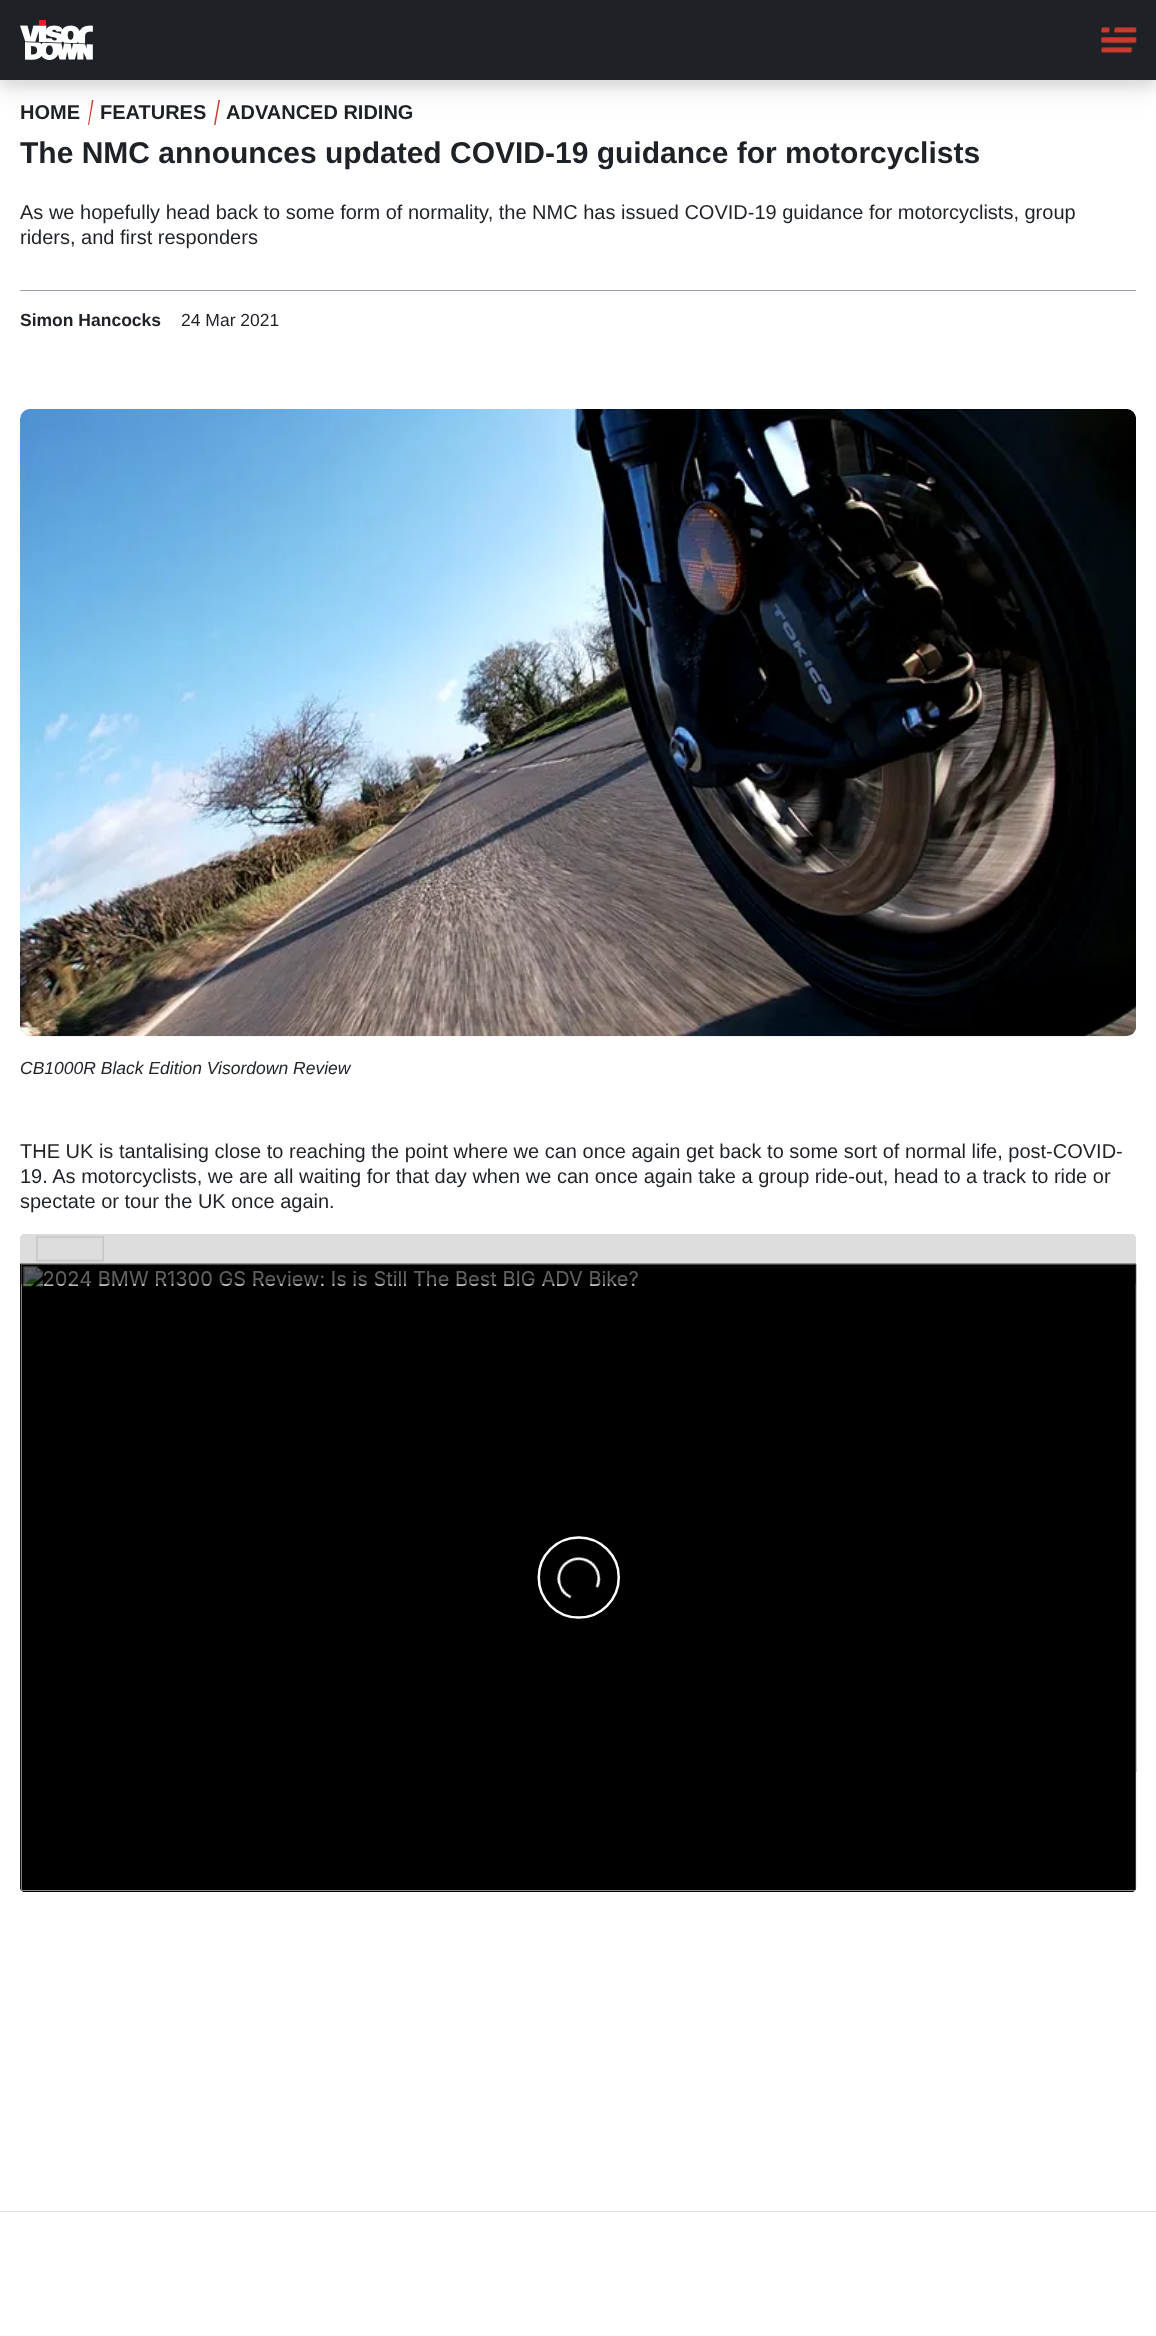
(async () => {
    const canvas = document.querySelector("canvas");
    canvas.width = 1156;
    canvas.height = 2336;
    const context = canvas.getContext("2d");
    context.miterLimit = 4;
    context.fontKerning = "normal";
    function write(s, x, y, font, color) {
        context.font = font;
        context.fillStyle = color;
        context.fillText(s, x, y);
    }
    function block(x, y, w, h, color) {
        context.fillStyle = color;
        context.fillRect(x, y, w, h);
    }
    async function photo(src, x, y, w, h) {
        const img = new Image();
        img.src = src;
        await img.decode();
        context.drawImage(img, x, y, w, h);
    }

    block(0, 0, 1156, 2336, "rgb(255, 255, 255)");
    context.fillStyle = "rgb(203, 59, 49)";
    context.beginPath();
    context.moveTo(92, 100);
    context.lineTo(93.5, 100);
    context.lineTo(89, 125);
    context.lineTo(88, 125);
    context.closePath();
    context.fill();
    context.beginPath();
    context.moveTo(218.5, 100);
    context.lineTo(220, 100);
    context.lineTo(215.5, 125);
    context.lineTo(214, 125);
    context.closePath();
    context.fill();
    context.fillStyle = "rgba(0, 0, 0, 0.07)";
    context.filter = "blur(4px)";
    context.beginPath();
    context.rect(0, 8, 1156, 80);
    context.fill();
    context.filter = "none";
    context.filter = "blur(12.5px)";
    context.beginPath();
    context.rect(0, 13, 1156, 80);
    context.fill();
    context.filter = "none";
    block(0, 0, 1156, 80, "rgb(30, 34, 39)");
    await photo("media/1.png", 20, 20, 73, 40);
    await photo("media/2.png", 1101, 27, 36, 27);
    write("HOME", 20, 119, "bold 20px Liberation Sans", "rgb(30, 34, 39)");
    write("FEATURES", 100, 119, "bold 20px Liberation Sans", "rgb(30, 34, 39)");
    write("ADVANCED RIDING", 226, 119, "bold 20px Liberation Sans", "rgb(30, 34, 39)");
    write("The NMC announces updated COVID-19 guidance for motorcyclists", 20, 163, "bold 30px Liberation Sans", "rgb(30, 34, 39)");
    write("As we hopefully head back to some form of normality, the NMC has issued COVID-19 guidance for motorcyclists, group", 20, 219, "20px Liberation Sans", "rgb(30, 34, 39)");
    write("riders, and first responders", 20, 244, "20px Liberation Sans", "rgb(30, 34, 39)");
    block(20, 290, 1116, 1, "rgb(157, 158, 170)");
    write("Simon Hancocks", 20, 326, "bold 17.5px Liberation Sans", "rgb(30, 34, 39)");
    write("24 Mar 2021", 181, 326, "17.5px Liberation Sans", "rgb(30, 34, 39)");
    await photo("media/3.png", 20, 409, 1116, 628);
    write("CB1000R Black Edition Visordown Review", 20, 1074, "italic 17.5px Liberation Sans", "rgb(30, 34, 39)");
    write("THE UK is tantalising close to reaching the point where we can once again get back to some sort of normal life, post-COVID-", 20, 1158, "20px Liberation Sans", "rgb(30, 34, 39)");
    write("19. As motorcyclists, we are all waiting for that day when we can once again take a group ride-out, head to a track to ride or", 20, 1183, "20px Liberation Sans", "rgb(30, 34, 39)");
    write("spectate or tour the UK once again.", 20, 1208, "20px Liberation Sans", "rgb(30, 34, 39)");
    await photo("media/4.png", 20, 1234, 1117, 658);
    block(0, 2211, 1156, 1, "rgb(224, 224, 224)");
})();
